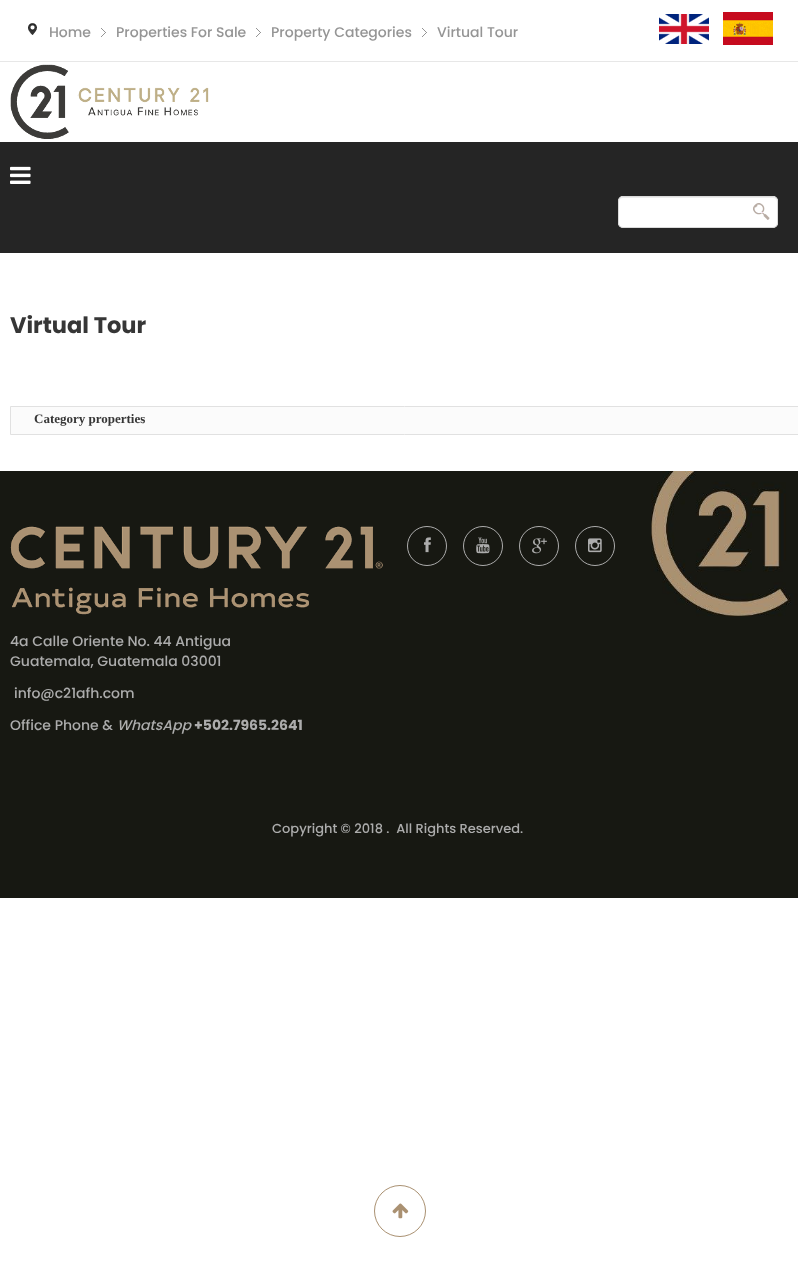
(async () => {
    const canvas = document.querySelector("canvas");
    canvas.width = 798;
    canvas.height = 1267;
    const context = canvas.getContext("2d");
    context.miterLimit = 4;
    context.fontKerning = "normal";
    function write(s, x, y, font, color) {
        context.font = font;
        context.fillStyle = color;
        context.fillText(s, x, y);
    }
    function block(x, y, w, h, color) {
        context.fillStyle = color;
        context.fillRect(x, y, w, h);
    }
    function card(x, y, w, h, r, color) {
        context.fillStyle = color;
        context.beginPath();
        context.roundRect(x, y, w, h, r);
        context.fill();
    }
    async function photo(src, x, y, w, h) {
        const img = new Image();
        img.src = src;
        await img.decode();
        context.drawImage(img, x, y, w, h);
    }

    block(0, 0, 798, 1267, "rgb(255, 255, 255)");
    block(0, 61, 798, 1, "rgb(231, 231, 231)");
    await photo("media/1.png", 28, 23, 9, 12);
    await photo("media/2.png", 101, 28, 5, 9);
    write("Home", 49, 37, "500 14px Poppins", "rgb(149, 149, 149)");
    await photo("media/2.png", 256, 28, 5, 9);
    write("Properties For Sale", 116, 37, "500 14px Poppins", "rgb(149, 149, 149)");
    await photo("media/2.png", 422, 28, 5, 9);
    write("Property Categories", 271, 37, "500 14px Poppins", "rgb(149, 149, 149)");
    write("Virtual Tour", 437, 37, "500 14px Poppins", "rgb(149, 149, 149)");
    await photo("media/3.png", 659, 14, 50, 30);
    await photo("media/4.png", 723, 12, 50, 33);
    await photo("media/5.png", 10, 64, 199, 75);
    block(0, 142, 798, 111, "rgb(37, 37, 37)");
    await photo("media/6.png", 10, 166, 21, 18);
    card(618, 196, 160, 32, 5, "rgb(255, 255, 255)");
    await photo("media/7.png", 753, 203, 17, 17);
    context.fillStyle = "rgb(236, 236, 236)";
    context.beginPath();
    context.moveTo(623, 198);
    context.lineTo(773, 198);
    context.bezierCurveTo(775, 198, 777, 200, 777, 202);
    context.bezierCurveTo(777, 200, 776, 198, 774, 197);
    context.lineTo(622, 197);
    context.bezierCurveTo(620, 198, 619, 200, 619, 202);
    context.bezierCurveTo(619, 200, 621, 198, 623, 198);
    context.closePath();
    context.fill();
    context.beginPath();
    context.roundRect(618.5, 196.5, 159, 31, 4.5);
    context.strokeStyle = "rgb(218, 218, 218)";
    context.stroke();
    write("Virtual Tour", 10, 333, "bold 22.5px Poppins", "rgb(54, 54, 54)");
    context.fillStyle = "rgb(251, 251, 251)";
    context.beginPath();
    context.rect(10.5, 406.5, 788, 28);
    context.fill();
    context.strokeStyle = "rgb(225, 225, 225)";
    context.stroke();
    write("Category properties", 34, 423, "bold 13px Liberation Serif", "rgb(54, 54, 54)");
    await photo("media/8.png", 0, 471, 798, 427);
    context.beginPath();
    context.arc(427, 546, 19.5, 0, Math.PI * 2);
    context.strokeStyle = "rgb(172, 172, 172)";
    context.stroke();
    await photo("media/9.png", 424, 537, 7, 16);
    context.beginPath();
    context.arc(483, 546, 19.5, 0, Math.PI * 2);
    context.stroke();
    await photo("media/10.png", 476, 537, 14, 17);
    context.beginPath();
    context.arc(539, 546, 19.5, 0, Math.PI * 2);
    context.stroke();
    await photo("media/11.png", 532, 538, 15, 16);
    context.beginPath();
    context.arc(595, 546, 19.5, 0, Math.PI * 2);
    context.stroke();
    await photo("media/12.png", 588, 538, 14, 15);
    await photo("media/13.png", 10, 526, 373, 89);
    write("4a Calle Oriente No. 44 Antigua", 10, 646, "500 14px Poppins", "rgb(172, 172, 172)");
    write("Guatemala, Guatemala 03001", 10, 666, "500 14px Poppins", "rgb(172, 172, 172)");
    write("info@c21afh.com", 14, 698, "500 14px Poppins", "rgb(172, 172, 172)");
    write("Office Phone &", 10, 730, "500 14px Poppins", "rgb(172, 172, 172)");
    write("WhatsApp", 117, 730, "italic 500 14px Poppins", "rgb(172, 172, 172)");
    write("+502.7965.2641", 194, 730, "bold 14px Poppins", "rgb(172, 172, 172)");
    write("Copyright © 2018 .  All Rights Reserved.", 272, 833, "500 13px Poppins", "rgb(172, 172, 172)");
    context.beginPath();
    context.arc(400, 1211, 25.5, 0, Math.PI * 2);
    context.strokeStyle = "rgb(170, 145, 114)";
    context.stroke();
    await photo("media/14.png", 392, 1203, 17, 16);
})();
